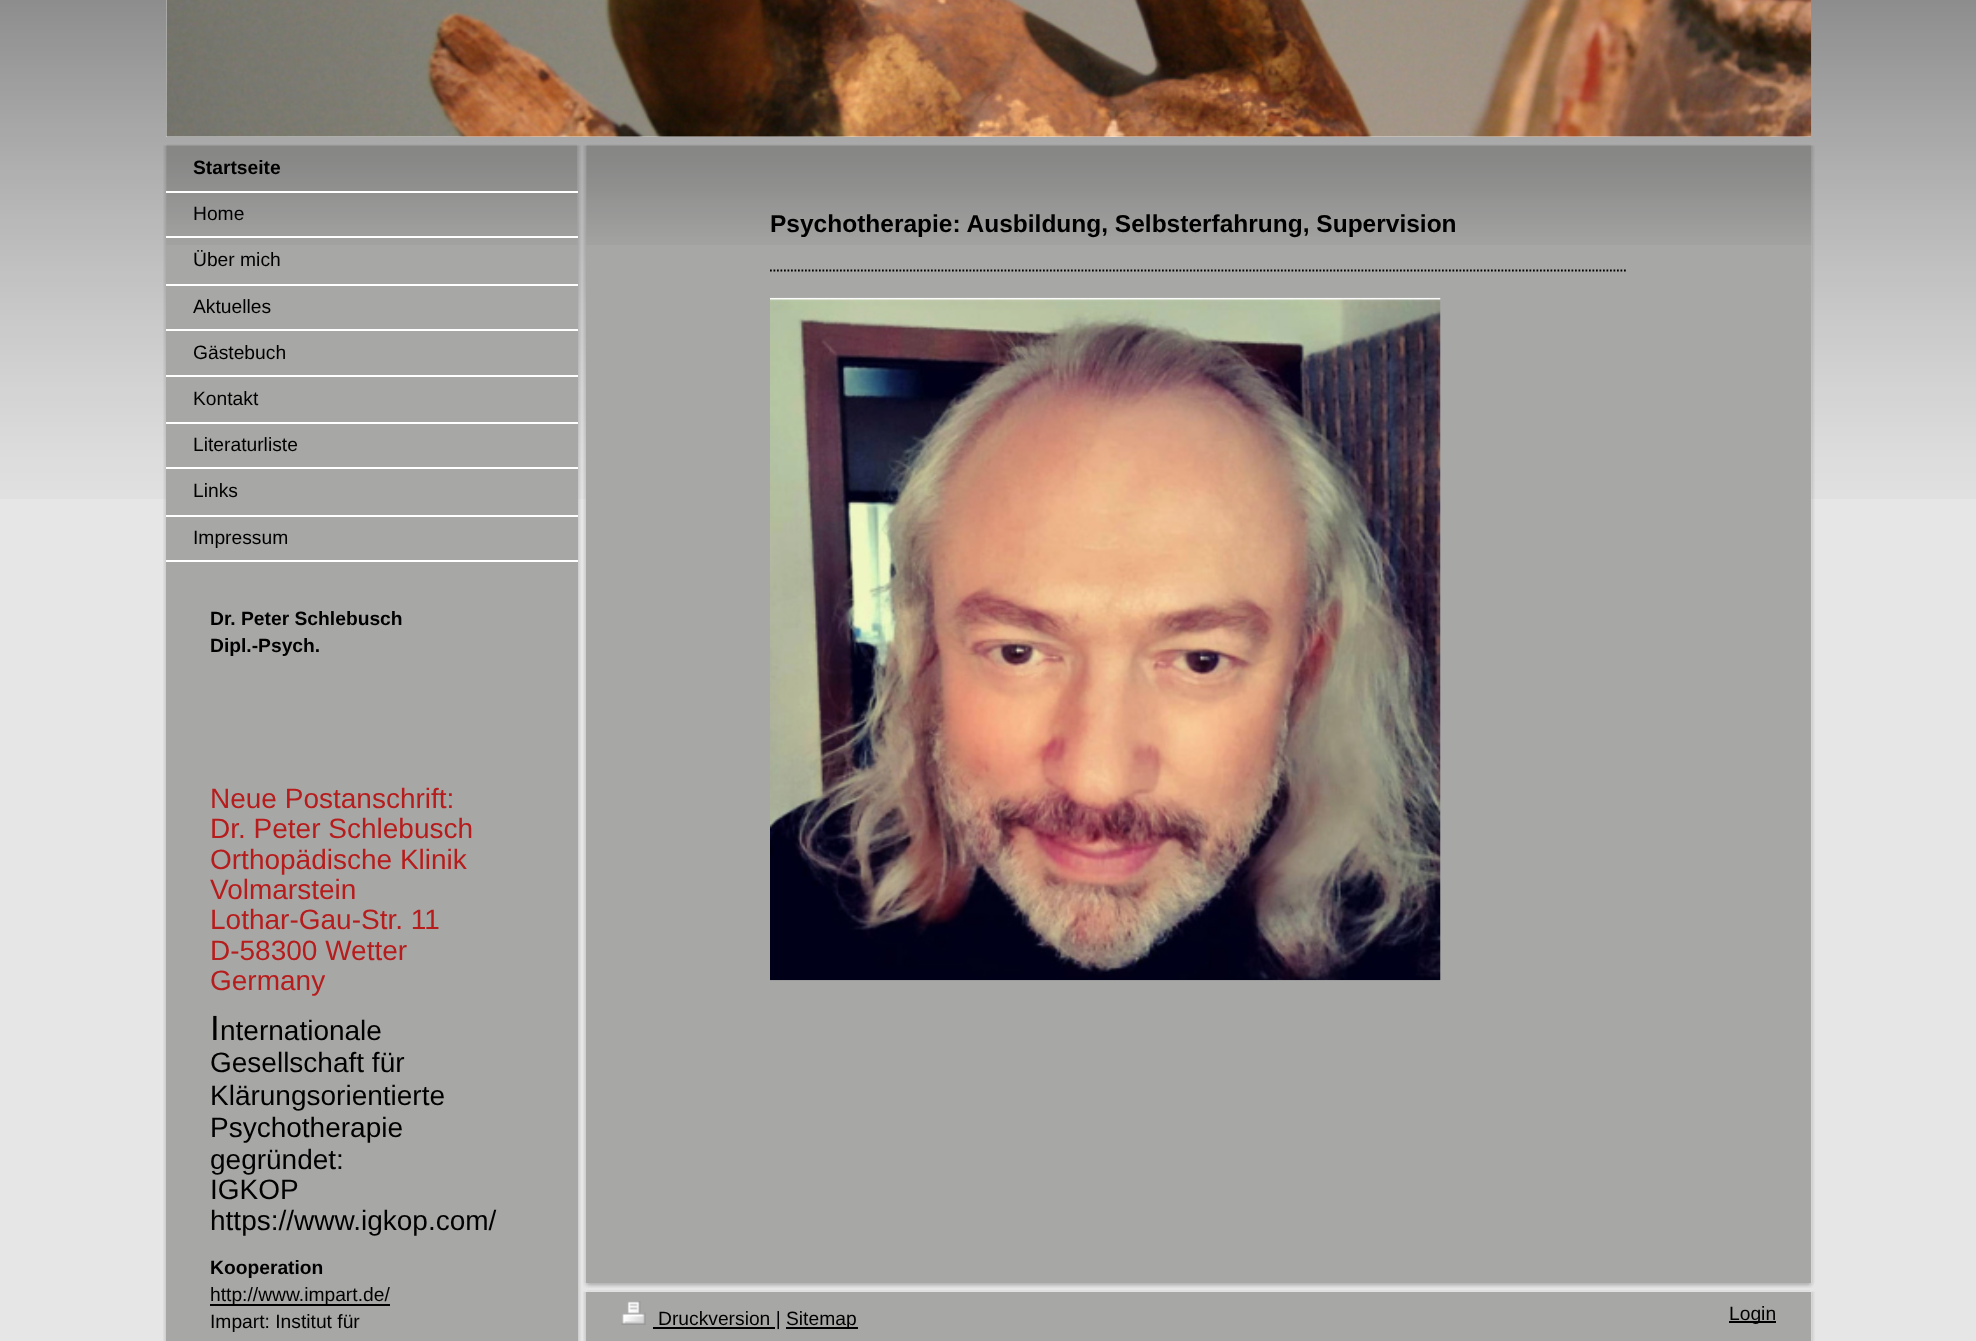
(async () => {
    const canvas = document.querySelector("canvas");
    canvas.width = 1976;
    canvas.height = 1341;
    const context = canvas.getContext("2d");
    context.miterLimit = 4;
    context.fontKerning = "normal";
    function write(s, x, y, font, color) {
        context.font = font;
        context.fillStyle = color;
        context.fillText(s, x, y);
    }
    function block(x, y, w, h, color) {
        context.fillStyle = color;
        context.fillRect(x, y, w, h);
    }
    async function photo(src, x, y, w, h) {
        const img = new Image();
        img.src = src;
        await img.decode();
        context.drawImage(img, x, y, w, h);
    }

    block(0, 0, 1976, 1341, "rgb(230, 230, 230)");
    await photo("media/1.png", 0, 0, 1976, 499);
    block(166, 0, 1645, 137, "rgb(238, 238, 238)");
    await photo("media/2.png", 166, 0, 1646, 137);
    block(167, 144, 410, 1, "rgb(165, 165, 165)");
    await photo("media/3.png", 163, 145, 418, 1196);
    block(166, 145, 412, 1196, "rgb(167, 167, 166)");
    await photo("media/4.png", 166, 145, 412, 100);
    block(166, 191, 412, 2, "rgb(255, 255, 255)");
    write("Startseite", 193, 174, "bold 19.25px Liberation Sans", "rgb(0, 0, 0)");
    block(166, 236, 412, 2, "rgb(255, 255, 255)");
    write("Home", 193, 220, "19.25px Liberation Sans", "rgb(0, 0, 0)");
    block(166, 284, 412, 2, "rgb(255, 255, 255)");
    write("Über mich", 193, 266, "19.25px Liberation Sans", "rgb(0, 0, 0)");
    block(166, 329, 412, 2, "rgb(255, 255, 255)");
    write("Aktuelles", 193, 313, "19.25px Liberation Sans", "rgb(0, 0, 0)");
    block(166, 375, 412, 2, "rgb(255, 255, 255)");
    write("Gästebuch", 193, 359, "19.25px Liberation Sans", "rgb(0, 0, 0)");
    block(166, 422, 412, 2, "rgb(255, 255, 255)");
    write("Kontakt", 193, 405, "19.25px Liberation Sans", "rgb(0, 0, 0)");
    block(166, 467, 412, 2, "rgb(255, 255, 255)");
    write("Literaturliste", 193, 451, "19.25px Liberation Sans", "rgb(0, 0, 0)");
    block(166, 515, 412, 2, "rgb(255, 255, 255)");
    write("Links", 193, 497, "19.25px Liberation Sans", "rgb(0, 0, 0)");
    block(166, 560, 412, 2, "rgb(255, 255, 255)");
    write("Impressum", 193, 544, "19.25px Liberation Sans", "rgb(0, 0, 0)");
    write("Dr. Peter Schlebusch", 210, 625, "bold 19.25px Liberation Sans", "rgb(0, 0, 0)");
    write("Dipl.-Psych.", 210, 652, "bold 19.25px Liberation Sans", "rgb(0, 0, 0)");
    write("Neue Postanschrift:", 210, 808, "28px Liberation Sans", "rgb(183, 28, 28)");
    write("Dr. Peter Schlebusch", 210, 838, "28px Liberation Sans", "rgb(183, 28, 28)");
    write("Orthopädische Klinik", 210, 869, "28px Liberation Sans", "rgb(183, 28, 28)");
    write("Volmarstein", 210, 899, "28px Liberation Sans", "rgb(183, 28, 28)");
    write("Lothar-Gau-Str. 11", 210, 929, "28px Liberation Sans", "rgb(183, 28, 28)");
    write("D-58300 Wetter", 210, 960, "28px Liberation Sans", "rgb(183, 28, 28)");
    write("Germany", 210, 990, "28px Liberation Sans", "rgb(183, 28, 28)");
    write("I", 210, 1040, "35px Liberation Sans", "rgb(0, 0, 0)");
    write("nternationale", 220, 1040, "28px Liberation Sans", "rgb(0, 0, 0)");
    write("Gesellschaft für", 210, 1072, "28px Liberation Sans", "rgb(0, 0, 0)");
    write("Klärungsorientierte", 210, 1105, "28px Liberation Sans", "rgb(0, 0, 0)");
    write("Psychotherapie", 210, 1137, "28px Liberation Sans", "rgb(0, 0, 0)");
    write("gegründet:", 210, 1169, "28px Liberation Sans", "rgb(0, 0, 0)");
    write("IGKOP", 210, 1199, "28px Liberation Sans", "rgb(0, 0, 0)");
    write("https://www.igkop.com/", 210, 1230, "28px Liberation Sans", "rgb(0, 0, 0)");
    write("Kooperation", 210, 1274, "bold 19.25px Liberation Sans", "rgb(0, 0, 0)");
    block(210, 1304, 180, 2, "rgb(0, 0, 0)");
    write("http://www.impart.de/", 210, 1301, "19.25px Liberation Sans", "rgb(0, 0, 0)");
    write("Impart: Institut für", 210, 1328, "19.25px Liberation Sans", "rgb(0, 0, 0)");
    block(587, 144, 1223, 1, "rgb(165, 165, 165)");
    await photo("media/5.png", 583, 1283, 1231, 5);
    await photo("media/6.png", 583, 145, 1232, 1138);
    block(586, 145, 1225, 1138, "rgb(167, 167, 166)");
    await photo("media/7.png", 586, 145, 1226, 100);
    write("Psychotherapie: Ausbildung, Selbsterfahrung, Supervision", 770, 232, "bold 24.5px Liberation Sans", "rgb(0, 0, 0)");
    context.beginPath();
    context.moveTo(770, 270.5);
    context.lineTo(1627.5, 270.5);
    context.strokeStyle = "rgb(0, 0, 0)";
    context.lineWidth = 1.8;
    context.setLineDash([1.75, 1.75]);
    context.stroke();
    await photo("media/8.png", 770, 297, 671, 684);
    await photo("media/9.png", 587, 1290, 1223, 2);
    await photo("media/10.png", 583, 1291, 1232, 50);
    block(586, 1292, 1225, 49, "rgb(167, 167, 166)");
    await photo("media/11.png", 621, 1301, 25, 24);
    block(653, 1327, 122, 2, "rgb(0, 0, 0)");
    write("Druckversion |", 658, 1325, "19.25px Liberation Sans", "rgb(0, 0, 0)");
    block(786, 1327, 72, 2, "rgb(0, 0, 0)");
    write("Sitemap", 786, 1325, "19.25px Liberation Sans", "rgb(0, 0, 0)");
    block(1729, 1321, 47, 2, "rgb(0, 0, 0)");
    write("Login", 1729, 1320, "19.25px Liberation Sans", "rgb(0, 0, 0)");
})();
